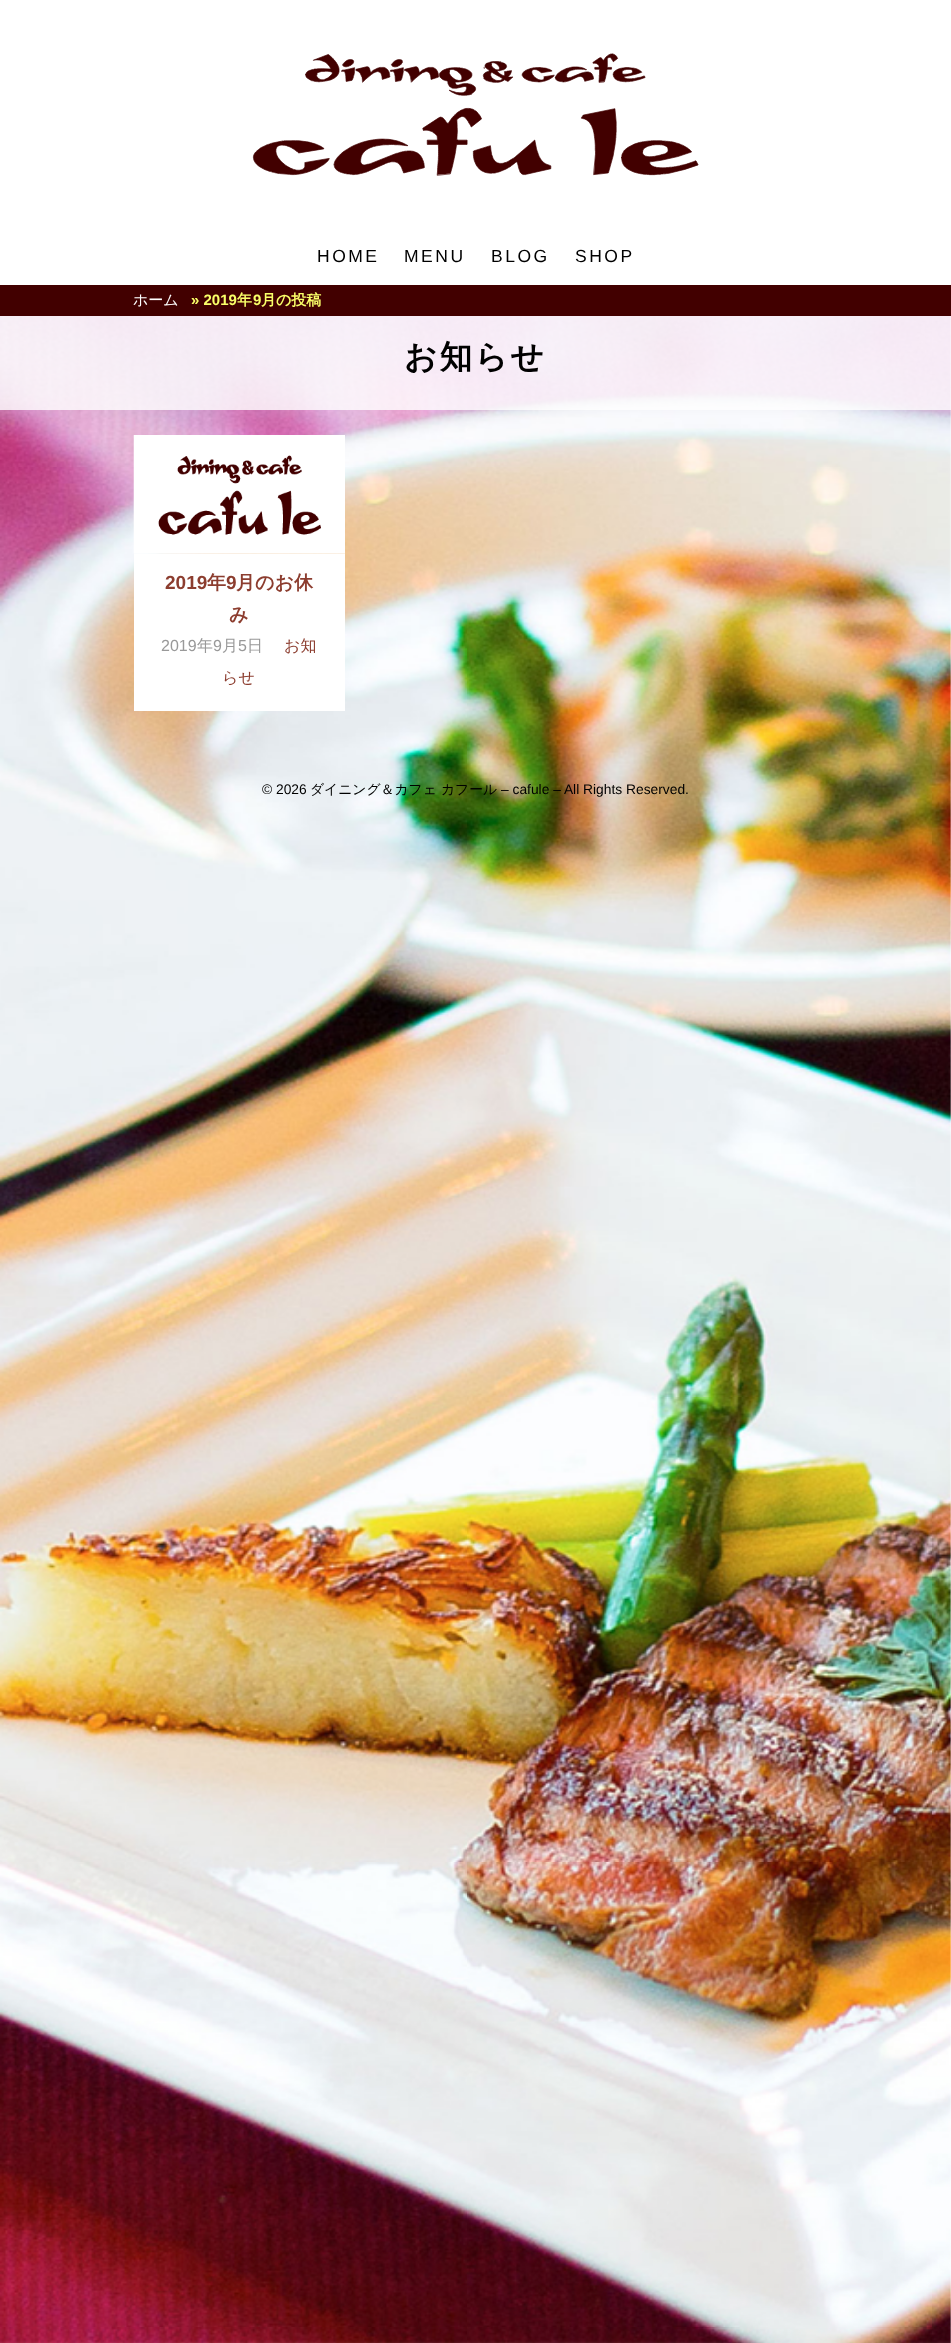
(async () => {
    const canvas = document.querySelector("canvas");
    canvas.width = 951;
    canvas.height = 2343;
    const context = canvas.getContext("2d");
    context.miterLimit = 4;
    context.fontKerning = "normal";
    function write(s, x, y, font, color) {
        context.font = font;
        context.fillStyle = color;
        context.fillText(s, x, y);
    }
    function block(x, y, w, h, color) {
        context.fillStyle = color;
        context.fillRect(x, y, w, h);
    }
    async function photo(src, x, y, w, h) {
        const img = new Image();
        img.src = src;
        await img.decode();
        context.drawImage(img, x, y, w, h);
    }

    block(0, 0, 951, 2343, "rgb(255, 255, 255)");
    await photo("media/1.png", 0, 316, 951, 2027);
    await photo("media/2.png", 252, 53, 447, 123);
    context.letterSpacing = "2.5px";
    write("HOME", 317, 262, "17.5px Liberation Sans", "rgb(0, 0, 0)");
    write("MENU", 404, 262, "17.5px Liberation Sans", "rgb(0, 0, 0)");
    write("BLOG", 491, 262, "17.5px Liberation Sans", "rgb(0, 0, 0)");
    write("SHOP", 575, 262, "17.5px Liberation Sans", "rgb(0, 0, 0)");
    block(0, 285, 951, 31, "rgb(66, 0, 0)");
    context.letterSpacing = "0px";
    write("ホーム", 133, 305, "500 15px WenQuanYi Zen Hei", "rgb(255, 255, 255)");
    write("» 2019", 191, 305, "bold 15px Liberation Sans", "rgb(250, 255, 104)");
    write("年", 237, 305, "bold 15px WenQuanYi Zen Hei", "rgb(250, 255, 104)");
    write("9", 253, 305, "bold 15px Liberation Sans", "rgb(250, 255, 104)");
    write("月の投稿", 261, 305, "bold 15px WenQuanYi Zen Hei", "rgb(250, 255, 104)");
    block(0, 316, 951, 94, "rgba(255, 255, 255, 0.8)");
    context.letterSpacing = "2.5px";
    write("お知らせ", 404, 368, "bold 32.5px WenQuanYi Zen Hei", "rgb(0, 0, 0)");
    await photo("media/3.png", 133, 435, 212, 119);
    block(134, 554, 211, 157, "rgb(255, 255, 255)");
    context.letterSpacing = "0px";
    write("2019", 165, 589, "bold 19px Liberation Sans", "rgb(140, 61, 47)");
    write("年", 207, 589, "bold 19px WenQuanYi Zen Hei", "rgb(140, 61, 47)");
    write("9", 226, 589, "bold 19px Liberation Sans", "rgb(140, 61, 47)");
    write("月のお休", 236, 589, "bold 19px WenQuanYi Zen Hei", "rgb(140, 61, 47)");
    write("み", 229, 621, "bold 19px WenQuanYi Zen Hei", "rgb(140, 61, 47)");
    write("2019", 161, 651, "16px Liberation Sans", "rgb(153, 153, 153)");
    write("年", 197, 651, "500 16px WenQuanYi Zen Hei", "rgb(153, 153, 153)");
    write("9", 213, 651, "16px Liberation Sans", "rgb(153, 153, 153)");
    write("月", 222, 651, "500 16px WenQuanYi Zen Hei", "rgb(153, 153, 153)");
    write("5", 238, 651, "16px Liberation Sans", "rgb(153, 153, 153)");
    write("日", 247, 651, "500 16px WenQuanYi Zen Hei", "rgb(153, 153, 153)");
    write("お知", 284, 651, "500 16px WenQuanYi Zen Hei", "rgb(140, 61, 47)");
    write("らせ", 222, 683, "500 16px WenQuanYi Zen Hei", "rgb(140, 61, 47)");
    write("© 2026", 262, 794, "13.8px Liberation Sans", "rgb(0, 0, 0)");
    write("ダイニング＆カフェ", 310, 794, "500 13.8px WenQuanYi Zen Hei", "rgb(0, 0, 0)");
    write("カフール", 441, 794, "500 13.8px WenQuanYi Zen Hei", "rgb(0, 0, 0)");
    write("– cafule – All Rights Reserved.", 501, 794, "13.8px Liberation Sans", "rgb(0, 0, 0)");
})();
